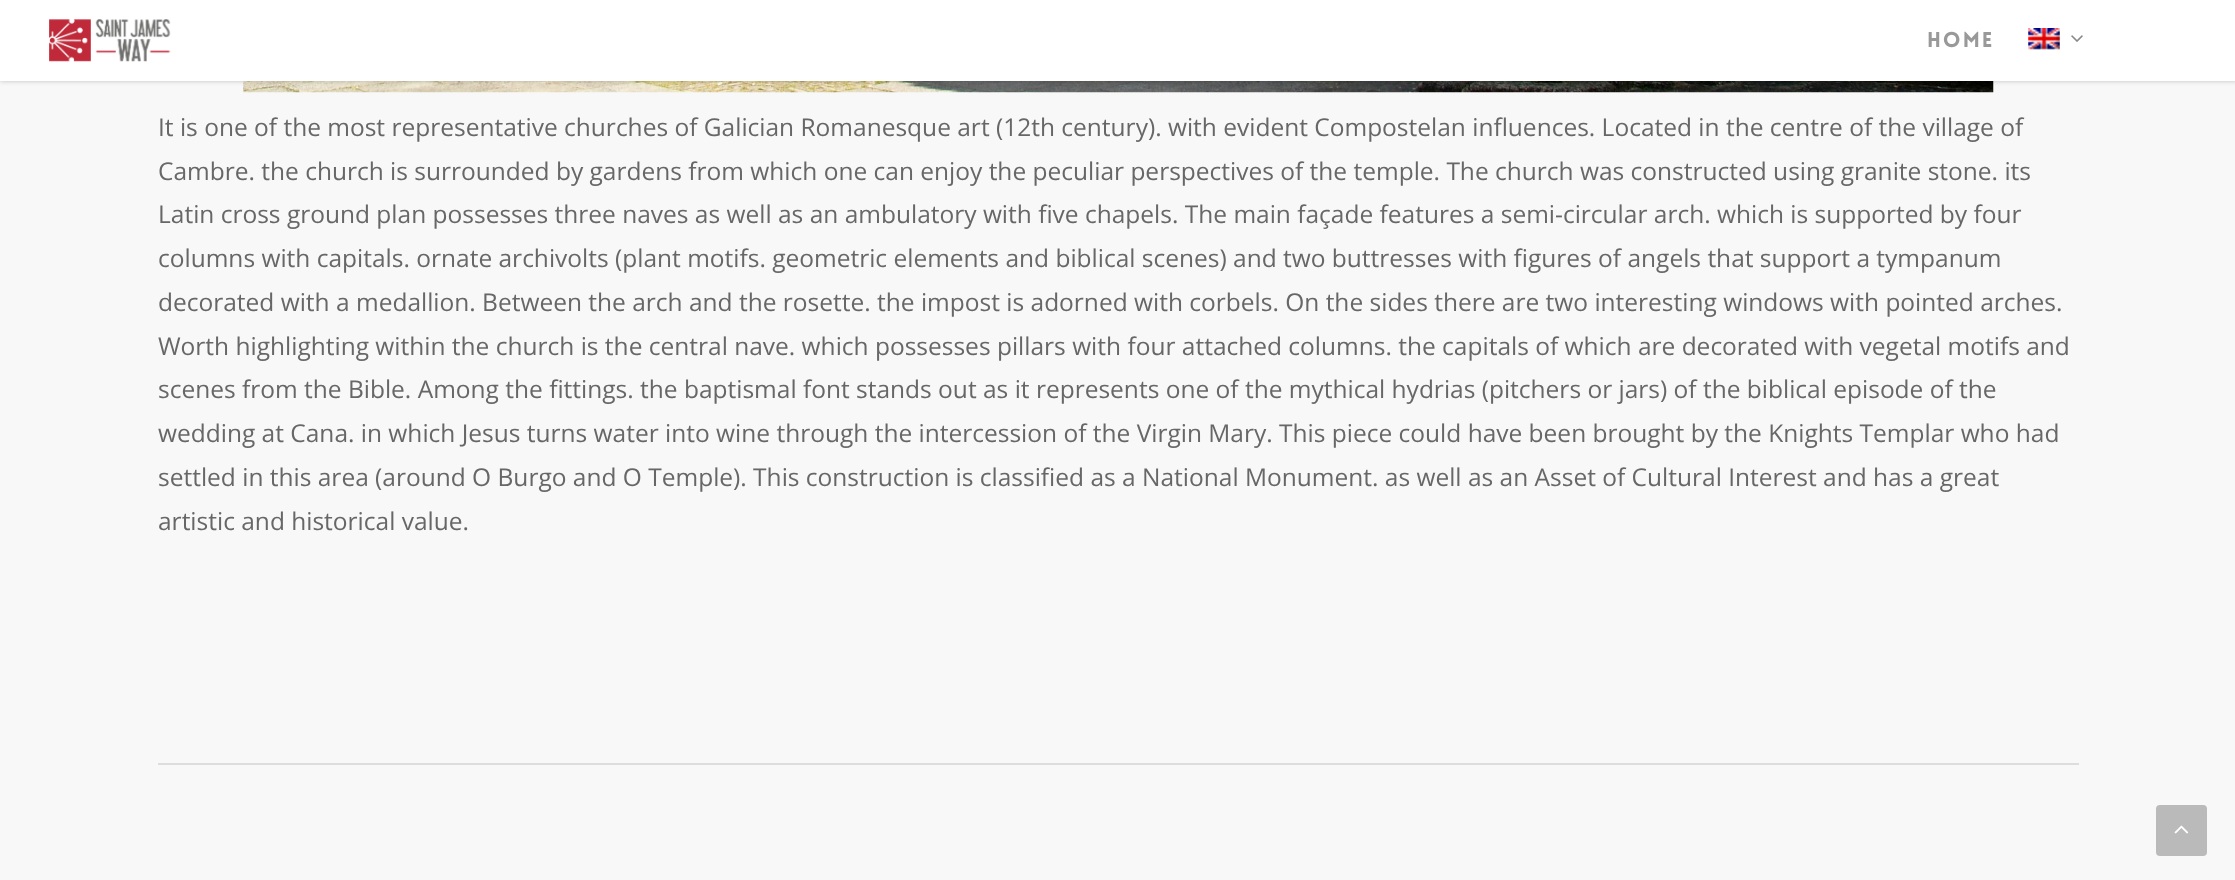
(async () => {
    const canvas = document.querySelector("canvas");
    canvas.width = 2235;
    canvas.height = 880;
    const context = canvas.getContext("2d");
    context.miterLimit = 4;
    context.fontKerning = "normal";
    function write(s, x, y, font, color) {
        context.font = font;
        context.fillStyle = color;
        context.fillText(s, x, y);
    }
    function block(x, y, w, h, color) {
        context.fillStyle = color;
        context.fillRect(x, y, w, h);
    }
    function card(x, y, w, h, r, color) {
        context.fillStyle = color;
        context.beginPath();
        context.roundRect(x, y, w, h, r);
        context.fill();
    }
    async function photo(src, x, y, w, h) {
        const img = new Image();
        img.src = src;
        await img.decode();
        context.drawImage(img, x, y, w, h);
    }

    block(0, 0, 2235, 880, "rgb(248, 248, 248)");
    await photo("media/4.png", 243, 81, 1751, 12);
    context.fillStyle = "rgba(0, 0, 0, 0.22)";
    context.filter = "blur(2.5px)";
    context.beginPath();
    context.rect(0, 0, 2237, 81);
    context.fill();
    context.filter = "none";
    block(0, 0, 2235, 81, "rgb(255, 255, 255)");
    await photo("media/1.png", 49, 19, 122, 43);
    context.letterSpacing = "2px";
    write("HOME", 1927, 47, "900 21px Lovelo", "rgb(153, 153, 153)");
    await photo("media/2.png", 2028, 28, 32, 22);
    await photo("media/3.png", 2071, 35, 12, 7);
    block(158, 763, 1921, 2, "rgb(221, 221, 221)");
    context.letterSpacing = "0px";
    write("It is one of the most representative churches of Galician Romanesque art (12th century). with evident Compostelan influences. Located in the centre of the village of", 158, 136, "24.5px Open Sans", "rgb(103, 103, 103)");
    write("Cambre. the church is surrounded by gardens from which one can enjoy the peculiar perspectives of the temple. The church was constructed using granite stone. its", 158, 180, "24.5px Open Sans", "rgb(103, 103, 103)");
    write("Latin cross ground plan possesses three naves as well as an ambulatory with five chapels. The main façade features a semi-circular arch. which is supported by four", 158, 223, "24.5px Open Sans", "rgb(103, 103, 103)");
    write("columns with capitals. ornate archivolts (plant motifs. geometric elements and biblical scenes) and two buttresses with figures of angels that support a tympanum", 158, 267, "24.5px Open Sans", "rgb(103, 103, 103)");
    write("decorated with a medallion. Between the arch and the rosette. the impost is adorned with corbels. On the sides there are two interesting windows with pointed arches.", 158, 311, "24.5px Open Sans", "rgb(103, 103, 103)");
    write("Worth highlighting within the church is the central nave. which possesses pillars with four attached columns. the capitals of which are decorated with vegetal motifs and", 158, 355, "24.5px Open Sans", "rgb(103, 103, 103)");
    write("scenes from the Bible. Among the fittings. the baptismal font stands out as it represents one of the mythical hydrias (pitchers or jars) of the biblical episode of the", 158, 398, "24.5px Open Sans", "rgb(103, 103, 103)");
    write("wedding at Cana. in which Jesus turns water into wine through the intercession of the Virgin Mary. This piece could have been brought by the Knights Templar who had", 158, 442, "24.5px Open Sans", "rgb(103, 103, 103)");
    write("settled in this area (around O Burgo and O Temple). This construction is classified as a National Monument. as well as an Asset of Cultural Interest and has a great", 158, 486, "24.5px Open Sans", "rgb(103, 103, 103)");
    write("artistic and historical value.", 158, 530, "24.5px Open Sans", "rgb(103, 103, 103)");
    card(2156, 805, 51, 51, 4, "rgb(186, 186, 186)");
    await photo("media/5.png", 2174, 825, 15, 9);
})();
